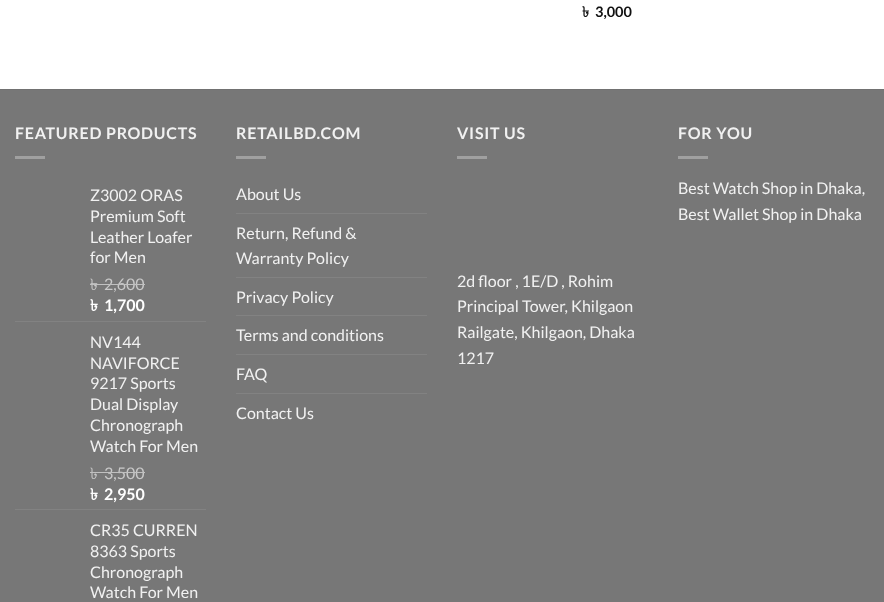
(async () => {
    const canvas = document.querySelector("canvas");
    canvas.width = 884;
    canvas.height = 602;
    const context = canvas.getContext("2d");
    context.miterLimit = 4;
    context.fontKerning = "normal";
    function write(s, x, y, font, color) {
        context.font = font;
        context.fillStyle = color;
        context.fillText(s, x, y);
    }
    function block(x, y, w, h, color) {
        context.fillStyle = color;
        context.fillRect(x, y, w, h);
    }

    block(0, 0, 884, 602, "rgb(255, 255, 255)");
    write("৳", 582, 17, "bold 14.5px Lohit Bengali", "rgb(17, 17, 17)");
    write("3,000", 595, 17, "bold 14.5px Lato", "rgb(17, 17, 17)");
    block(0, 90, 884, 512, "rgb(119, 119, 119)");
    block(0, 89, 884, 1, "rgb(113, 113, 113)");
    context.letterSpacing = "0.75px";
    write("FEATURED PRODUCTS", 15, 139, "bold 16px Lato", "rgb(241, 241, 241)");
    block(15, 156, 30, 3, "rgb(160, 160, 160)");
    context.letterSpacing = "0px";
    write("Z3002 ORAS", 90, 201, "16px Lato", "rgb(241, 241, 241)");
    write("Premium Soft", 90, 222, "16px Lato", "rgb(241, 241, 241)");
    write("Leather Loafer", 90, 243, "16px Lato", "rgb(241, 241, 241)");
    write("for Men", 90, 263, "16px Lato", "rgb(241, 241, 241)");
    write("৳", 90, 290, "16px Lohit Bengali", "rgb(201, 201, 201)");
    block(90, 284, 11, 1, "rgb(192, 192, 192)");
    write("2,600", 104, 290, "16px Lato", "rgb(201, 201, 201)");
    block(101, 284, 44, 1, "rgb(192, 192, 192)");
    write("৳", 90, 311, "bold 16px Lohit Bengali", "rgb(255, 255, 255)");
    write("1,700", 104, 311, "bold 16px Lato", "rgb(255, 255, 255)");
    block(15, 321, 191, 1, "rgb(130, 130, 130)");
    write("NV144", 90, 348, "16px Lato", "rgb(241, 241, 241)");
    write("NAVIFORCE", 90, 369, "16px Lato", "rgb(241, 241, 241)");
    write("9217 Sports", 90, 389, "16px Lato", "rgb(241, 241, 241)");
    write("Dual Display", 90, 410, "16px Lato", "rgb(241, 241, 241)");
    write("Chronograph", 90, 431, "16px Lato", "rgb(241, 241, 241)");
    write("Watch For Men", 90, 452, "16px Lato", "rgb(241, 241, 241)");
    write("৳", 90, 479, "16px Lohit Bengali", "rgb(201, 201, 201)");
    block(90, 472, 11, 1, "rgb(192, 192, 192)");
    write("3,500", 104, 479, "16px Lato", "rgb(201, 201, 201)");
    block(101, 472, 44, 1, "rgb(192, 192, 192)");
    write("৳", 90, 500, "bold 16px Lohit Bengali", "rgb(255, 255, 255)");
    write("2,950", 104, 500, "bold 16px Lato", "rgb(255, 255, 255)");
    block(15, 509, 191, 1, "rgb(130, 130, 130)");
    write("CR35 CURREN", 90, 536, "16px Lato", "rgb(241, 241, 241)");
    write("8363 Sports", 90, 557, "16px Lato", "rgb(241, 241, 241)");
    write("Chronograph", 90, 578, "16px Lato", "rgb(241, 241, 241)");
    write("Watch For Men", 90, 598, "16px Lato", "rgb(241, 241, 241)");
    context.letterSpacing = "0.75px";
    write("RETAILBD.COM", 236, 139, "bold 16px Lato", "rgb(241, 241, 241)");
    block(236, 156, 30, 3, "rgb(160, 160, 160)");
    context.letterSpacing = "0px";
    write("About Us", 236, 200, "16px Lato", "rgb(241, 241, 241)");
    block(236, 213, 191, 1, "rgb(130, 130, 130)");
    write("Return, Refund &", 236, 239, "16px Lato", "rgb(241, 241, 241)");
    write("Warranty Policy", 236, 264, "16px Lato", "rgb(241, 241, 241)");
    block(236, 277, 191, 1, "rgb(130, 130, 130)");
    write("Privacy Policy", 236, 303, "16px Lato", "rgb(241, 241, 241)");
    block(236, 315, 191, 1, "rgb(130, 130, 130)");
    write("Terms and conditions", 236, 341, "16px Lato", "rgb(241, 241, 241)");
    block(236, 354, 191, 1, "rgb(130, 130, 130)");
    write("FAQ", 236, 380, "16px Lato", "rgb(241, 241, 241)");
    block(236, 393, 191, 1, "rgb(130, 130, 130)");
    write("Contact Us", 236, 419, "16px Lato", "rgb(241, 241, 241)");
    context.letterSpacing = "0.75px";
    write("VISIT US", 457, 139, "bold 16px Lato", "rgb(241, 241, 241)");
    block(457, 156, 30, 3, "rgb(160, 160, 160)");
    context.letterSpacing = "0px";
    write("2d floor , 1E/D , Rohim", 457, 287, "16px Lato", "rgb(241, 241, 241)");
    write("Principal Tower, Khilgaon", 457, 312, "16px Lato", "rgb(241, 241, 241)");
    write("Railgate, Khilgaon, Dhaka", 457, 338, "16px Lato", "rgb(241, 241, 241)");
    write("1217", 457, 364, "16px Lato", "rgb(241, 241, 241)");
    context.letterSpacing = "0.75px";
    write("FOR YOU", 678, 139, "bold 16px Lato", "rgb(241, 241, 241)");
    block(678, 156, 30, 3, "rgb(160, 160, 160)");
    context.letterSpacing = "0px";
    write("Best Watch Shop in Dhaka,", 678, 194, "16px Lato", "rgb(241, 241, 241)");
    write("Best Wallet Shop in Dhaka", 678, 220, "16px Lato", "rgb(241, 241, 241)");
})();
